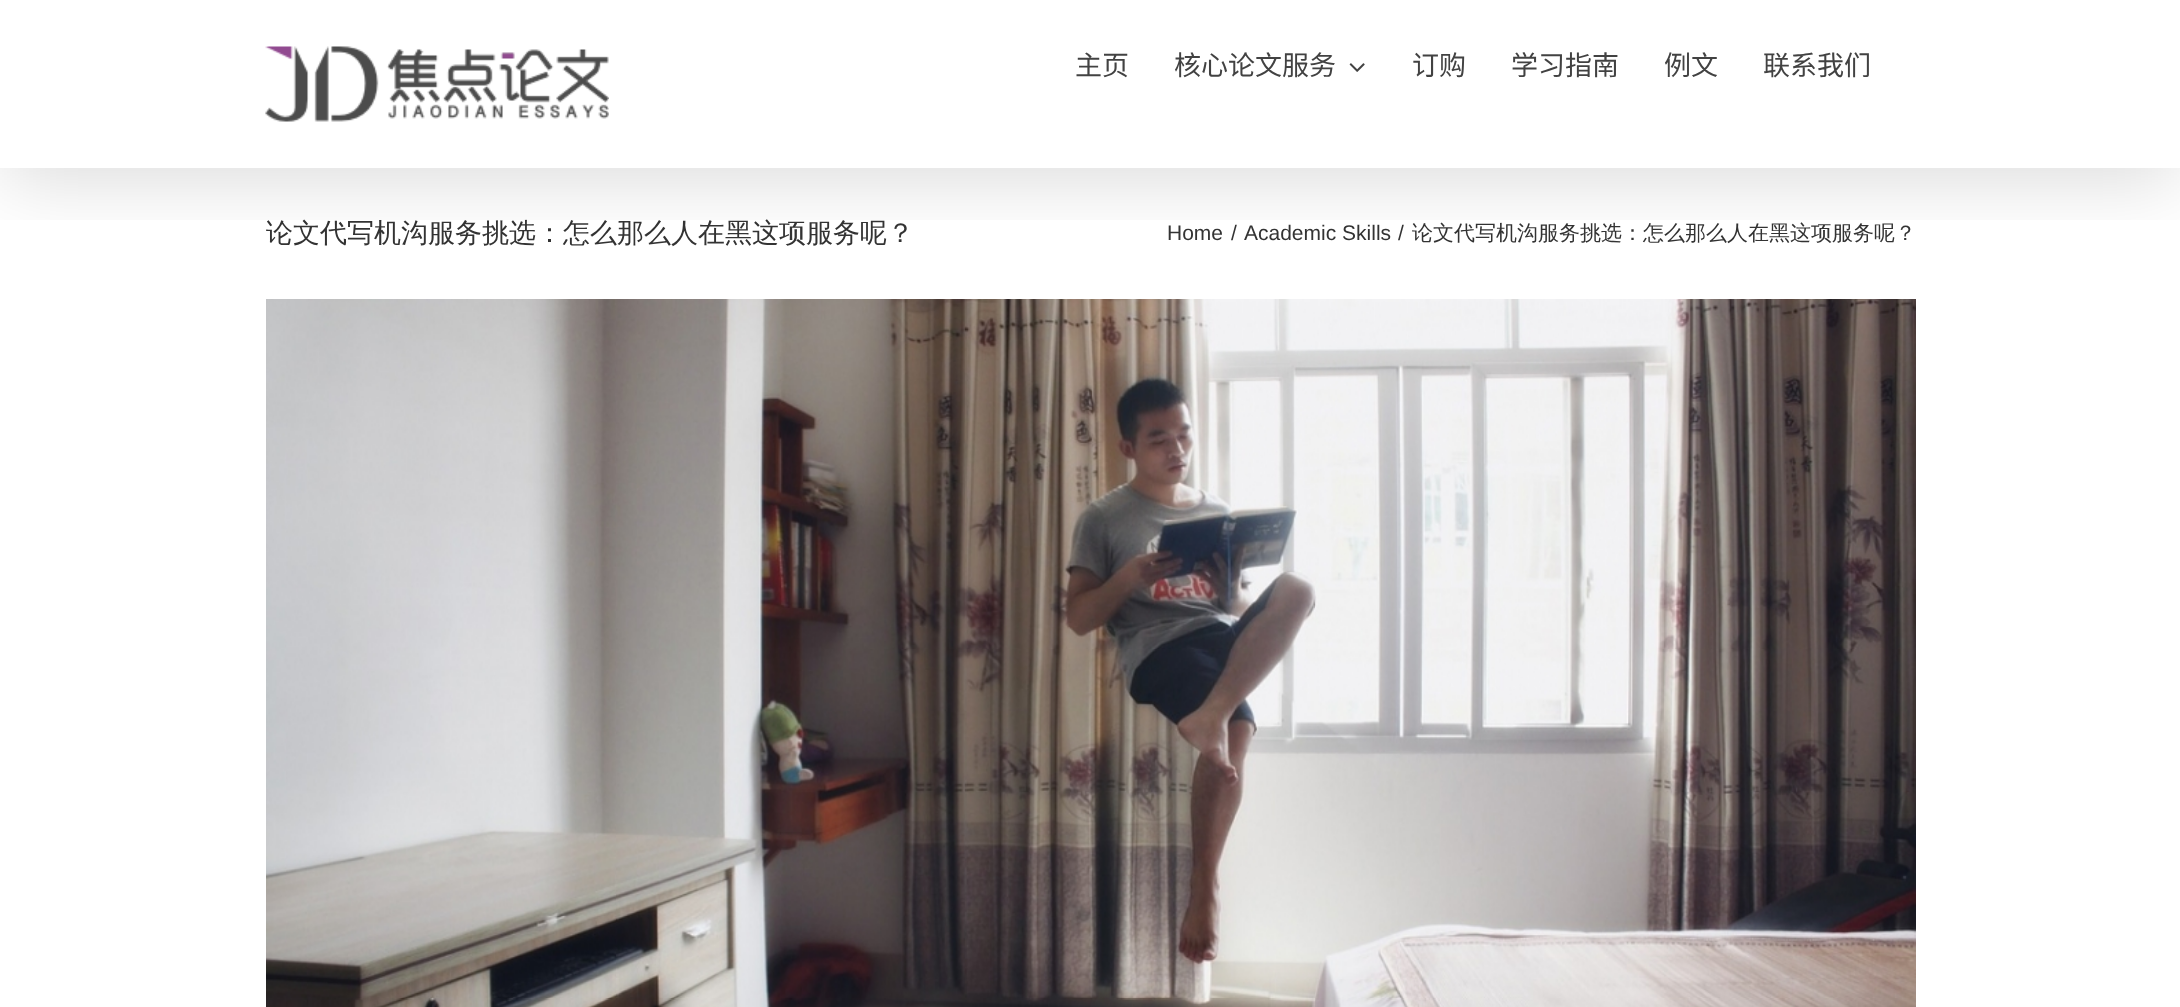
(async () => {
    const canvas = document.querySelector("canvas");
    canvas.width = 2180;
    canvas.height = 1007;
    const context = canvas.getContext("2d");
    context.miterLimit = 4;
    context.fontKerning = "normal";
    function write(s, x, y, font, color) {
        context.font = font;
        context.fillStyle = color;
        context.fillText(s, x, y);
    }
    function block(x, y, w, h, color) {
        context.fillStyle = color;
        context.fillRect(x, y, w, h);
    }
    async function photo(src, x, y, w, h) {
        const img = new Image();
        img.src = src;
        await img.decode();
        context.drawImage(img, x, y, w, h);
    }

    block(0, 0, 2180, 1007, "rgb(255, 255, 255)");
    context.save();
    context.beginPath();
    context.rect(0, 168, 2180, 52);
    context.clip();
    context.fillStyle = "rgba(0, 0, 0, 0.14)";
    context.filter = "blur(37.5px)";
    context.beginPath();
    context.rect(3, 18, 2175, 162);
    context.fill();
    context.filter = "none";
    context.restore();
    await photo("media/1.png", 265, 46, 344, 76);
    write("主页", 1075, 75, "100 27px Noto Sans SC", "rgb(66, 66, 66)");
    write("核心论文服务", 1174, 75, "100 27px Noto Sans SC", "rgb(66, 66, 66)");
    await photo("media/2.png", 1349, 63, 16, 9);
    write("订购", 1412, 75, "100 27px Noto Sans SC", "rgb(66, 66, 66)");
    write("学习指南", 1511, 75, "100 27px Noto Sans SC", "rgb(66, 66, 66)");
    write("例文", 1664, 75, "100 27px Noto Sans SC", "rgb(66, 66, 66)");
    write("联系我们", 1763, 75, "100 27px Noto Sans SC", "rgb(66, 66, 66)");
    write("论文代写机沟服务挑选：怎么那么人在黑这项服务呢？", 266, 242, "500 27px WenQuanYi Zen Hei", "rgb(51, 51, 51)");
    write("Home", 1167, 240, "21px Liberation Sans", "rgb(51, 51, 51)");
    write("/", 1231, 240, "21px Liberation Sans", "rgb(51, 51, 51)");
    write("Academic Skills", 1244, 240, "21px Liberation Sans", "rgb(51, 51, 51)");
    write("/", 1398, 240, "21px Liberation Sans", "rgb(51, 51, 51)");
    write("论文代写机沟服务挑选：怎么那么人在黑这项服务呢？", 1412, 240, "500 21px WenQuanYi Zen Hei", "rgb(51, 51, 51)");
    await photo("media/3.png", 266, 299, 1650, 708);
})();
